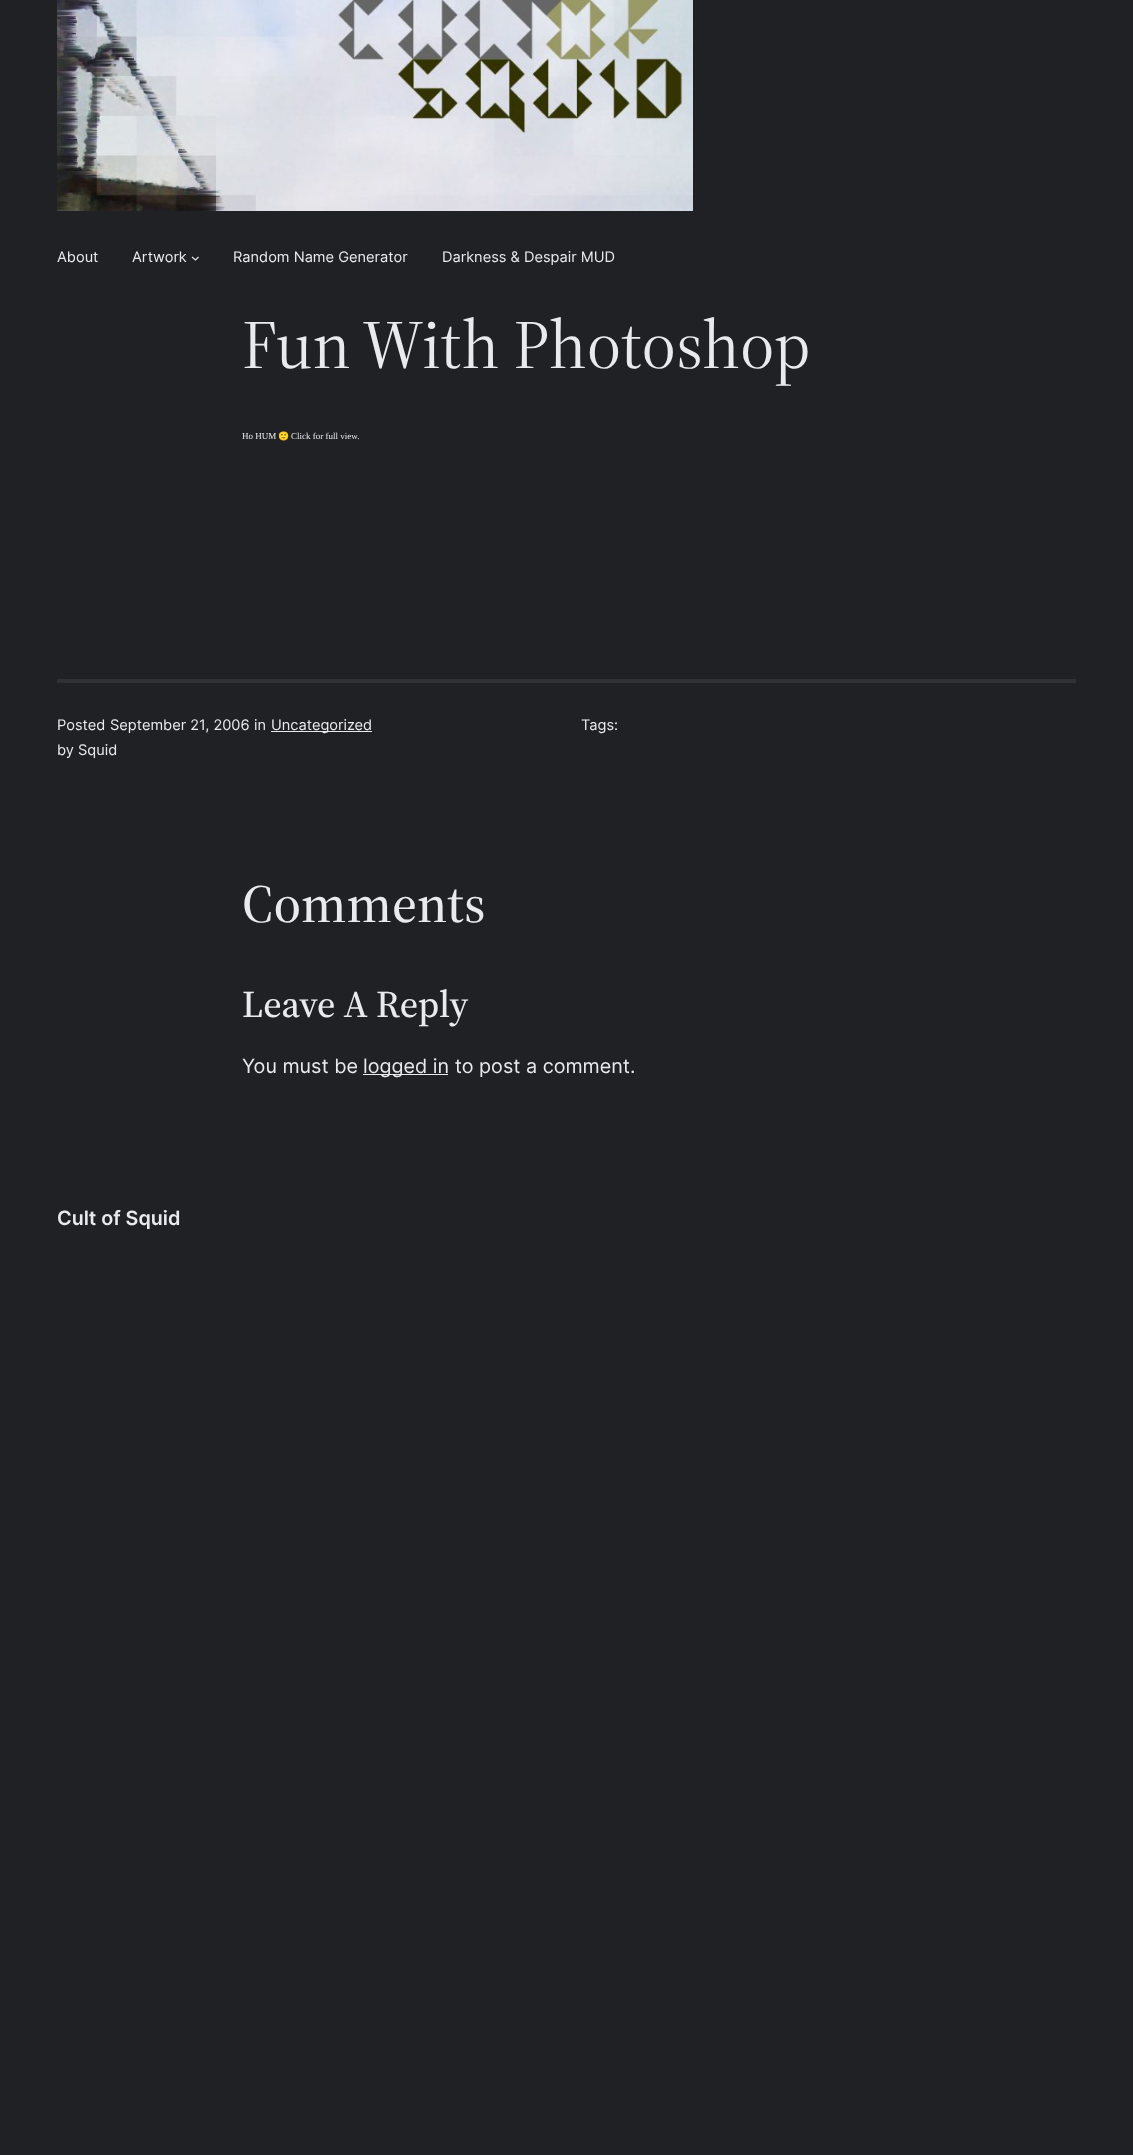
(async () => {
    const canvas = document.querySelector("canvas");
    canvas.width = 1133;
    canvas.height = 2155;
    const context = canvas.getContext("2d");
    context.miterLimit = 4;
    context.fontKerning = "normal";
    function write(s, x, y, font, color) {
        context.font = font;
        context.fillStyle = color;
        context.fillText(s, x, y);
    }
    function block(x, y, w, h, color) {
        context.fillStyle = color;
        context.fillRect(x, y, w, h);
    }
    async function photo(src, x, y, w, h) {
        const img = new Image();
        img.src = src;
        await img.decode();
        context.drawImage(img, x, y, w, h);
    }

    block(0, 0, 1133, 2155, "rgb(32, 33, 36)");
    await photo("media/1.png", 57, 0, 636, 211);
    write("About", 57, 262, "14.6px Inter", "rgb(232, 234, 237)");
    write("Artwork", 132, 262, "14.6px Inter", "rgb(232, 234, 237)");
    context.beginPath();
    context.moveTo(192, 257);
    context.lineTo(195.5, 260);
    context.lineTo(198.5, 257);
    context.strokeStyle = "rgb(232, 234, 237)";
    context.lineWidth = 1.1;
    context.stroke();
    write("Random Name Generator", 233, 262, "14.6px Inter", "rgb(232, 234, 237)");
    write("Darkness & Despair MUD", 442, 262, "14.6px Inter", "rgb(232, 234, 237)");
    write("Fun With Photoshop", 242, 368, "68.5px 'Source Serif 4'", "rgb(232, 234, 237)");
    write("Ho HUM", 242, 439, "9px Liberation Serif", "rgb(232, 234, 237)");
    write("🙂", 278, 439, "9px Noto Color Emoji", "rgb(232, 234, 237)");
    write("Click for full view.", 291, 439, "9px Liberation Serif", "rgb(232, 234, 237)");
    block(57, 679, 1019, 4, "rgb(48, 49, 52)");
    write("Posted", 57, 730, "14.6px Inter", "rgb(232, 234, 237)");
    write("September 21, 2006", 110, 730, "14.6px Inter", "rgb(232, 234, 237)");
    write("in", 254, 730, "14.6px Inter", "rgb(232, 234, 237)");
    block(271, 731, 101, 1, "rgb(232, 234, 237)");
    write("Uncategorized", 271, 730, "14.6px Inter", "rgb(232, 234, 237)");
    write("by", 57, 755, "14.6px Inter", "rgb(232, 234, 237)");
    write("Squid", 78, 755, "14.6px Inter", "rgb(232, 234, 237)");
    write("Tags:", 581, 730, "14.6px Inter", "rgb(232, 234, 237)");
    write("Comments", 242, 922, "500 53.5px 'Source Serif 4'", "rgb(232, 234, 237)");
    write("Leave A Reply", 242, 1017, "500 37.75px 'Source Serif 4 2'", "rgb(232, 234, 237)");
    write("You must be", 242, 1073, "19.75px Inter", "rgb(232, 234, 237)");
    block(363, 1074, 85, 1, "rgb(232, 234, 237)");
    write("logged in to post a comment.", 363, 1073, "19.75px Inter", "rgb(232, 234, 237)");
    write("Cult of Squid", 57, 1225, "600 19.75px Inter", "rgb(232, 234, 237)");
})();
